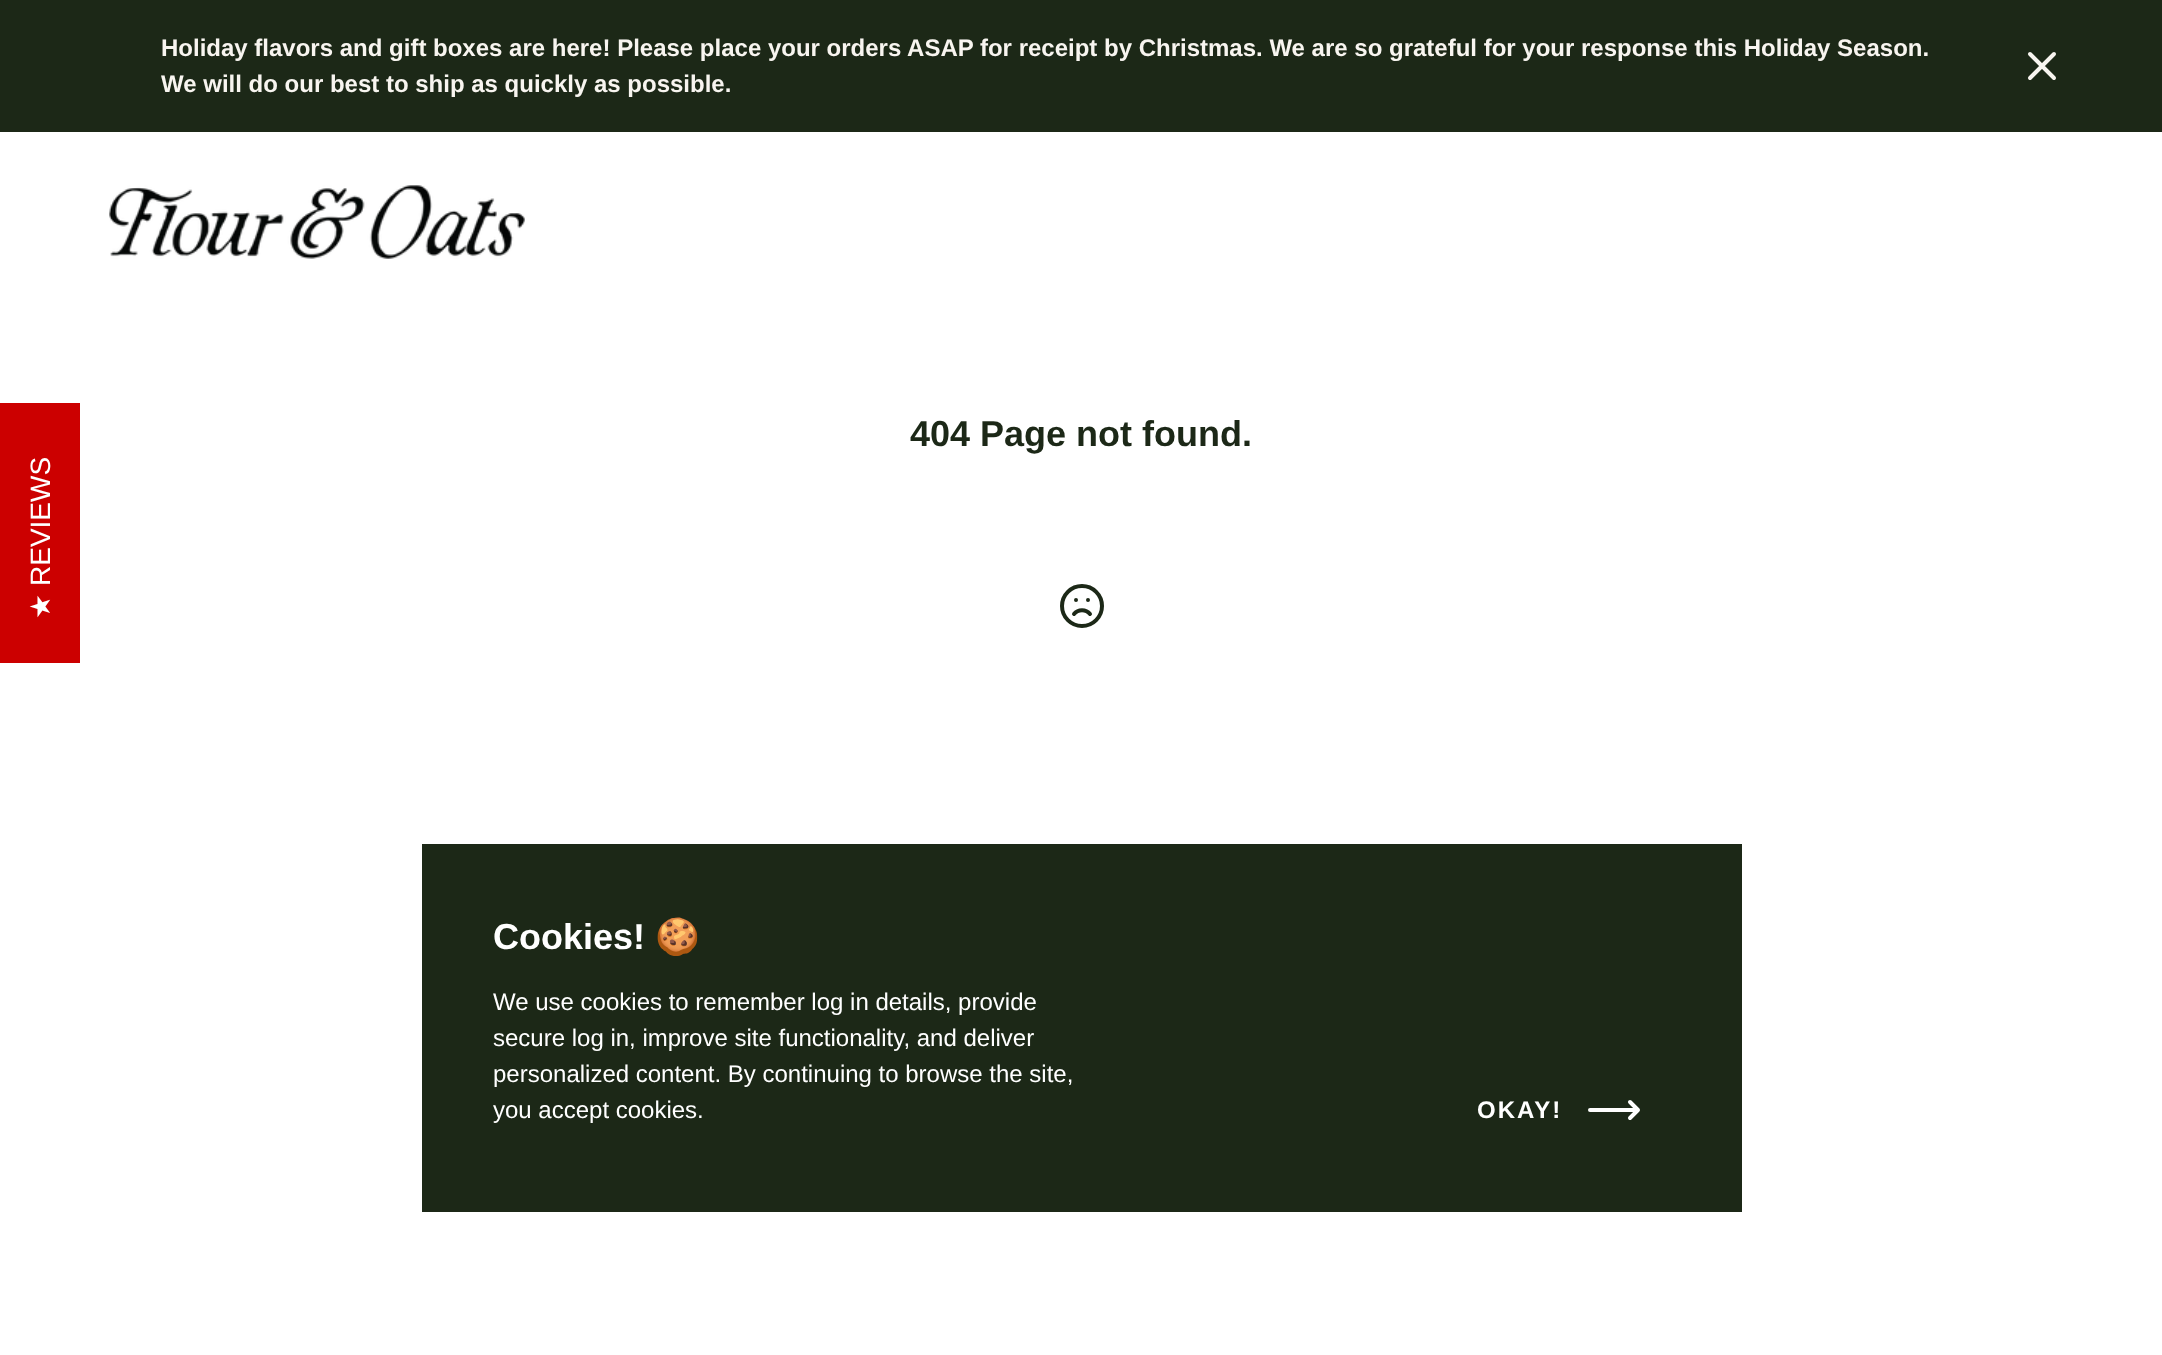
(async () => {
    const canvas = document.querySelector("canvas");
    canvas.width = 2162;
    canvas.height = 1355;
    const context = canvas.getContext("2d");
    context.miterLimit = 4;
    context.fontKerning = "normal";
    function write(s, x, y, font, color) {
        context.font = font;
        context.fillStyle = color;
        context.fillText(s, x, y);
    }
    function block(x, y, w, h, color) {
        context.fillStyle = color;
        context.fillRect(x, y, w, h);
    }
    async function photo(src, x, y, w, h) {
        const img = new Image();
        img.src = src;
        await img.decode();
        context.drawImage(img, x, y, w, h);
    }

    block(0, 0, 2162, 1355, "rgb(255, 255, 255)");
    block(0, 403, 80, 260, "rgb(204, 0, 0)");
    context.font = "28px Liberation Sans";
    context.fillStyle = "rgb(255, 255, 255)";
    context.save();
    context.translate(50, 586);
    context.rotate(-90 * Math.PI / 180);
    context.fillText("REVIEWS", 0, 0);
    context.restore();
    context.font = "28px DejaVu Sans";
    context.save();
    context.translate(50, 619);
    context.rotate(-90 * Math.PI / 180);
    context.fillText("★", 0, 0);
    context.restore();
    block(0, 0, 2162, 132, "rgb(28, 40, 23)");
    write("Holiday flavors and gift boxes are here! Please place your orders ASAP for receipt by Christmas. We are so grateful for your response this Holiday Season.", 161, 56, "bold 24px Liberation Sans", "rgb(248, 245, 240)");
    write("We will do our best to ship as quickly as possible.", 161, 92, "bold 24px Liberation Sans", "rgb(248, 245, 240)");
    context.beginPath();
    context.moveTo(2054, 54);
    context.lineTo(2030, 78);
    context.moveTo(2030, 54);
    context.lineTo(2054, 78);
    context.strokeStyle = "rgb(248, 245, 240)";
    context.lineWidth = 4;
    context.lineCap = "round";
    context.lineJoin = "round";
    context.stroke();
    await photo("media/1.png", 109, 185, 416, 74);
    write("404 Page not found.", 910, 446, "bold 36px Liberation Sans", "rgb(28, 40, 23)");
    context.beginPath();
    context.arc(1082, 606, 20, 0, Math.PI * 2);
    context.strokeStyle = "rgb(28, 40, 23)";
    context.stroke();
    context.beginPath();
    context.moveTo(1090, 614);
    context.bezierCurveTo(1086, 609, 1078, 609, 1074, 614);
    context.moveTo(1076, 600);
    context.lineTo(1076, 600);
    context.moveTo(1088, 600);
    context.lineTo(1088, 600);
    context.stroke();
    block(422, 844, 1320, 368, "rgb(28, 40, 23)");
    write("Cookies!", 493, 949, "bold 36px Liberation Sans", "rgb(255, 255, 255)");
    write("🍪", 655, 949, "bold 36px Noto Color Emoji", "rgb(255, 255, 255)");
    write("We use cookies to remember log in details, provide", 493, 1010, "24px Liberation Sans", "rgb(255, 255, 255)");
    write("secure log in, improve site functionality, and deliver", 493, 1046, "24px Liberation Sans", "rgb(255, 255, 255)");
    write("personalized content. By continuing to browse the site,", 493, 1082, "24px Liberation Sans", "rgb(255, 255, 255)");
    write("you accept cookies.", 493, 1118, "24px Liberation Sans", "rgb(255, 255, 255)");
    context.letterSpacing = "2px";
    write("OKAY!", 1477, 1118, "bold 24px Liberation Sans", "rgb(255, 255, 255)");
    context.beginPath();
    context.moveTo(1630, 1118);
    context.lineTo(1638, 1110);
    context.lineTo(1630, 1102);
    context.moveTo(1590, 1110);
    context.lineTo(1638, 1110);
    context.strokeStyle = "rgb(255, 255, 255)";
    context.stroke();
})();
